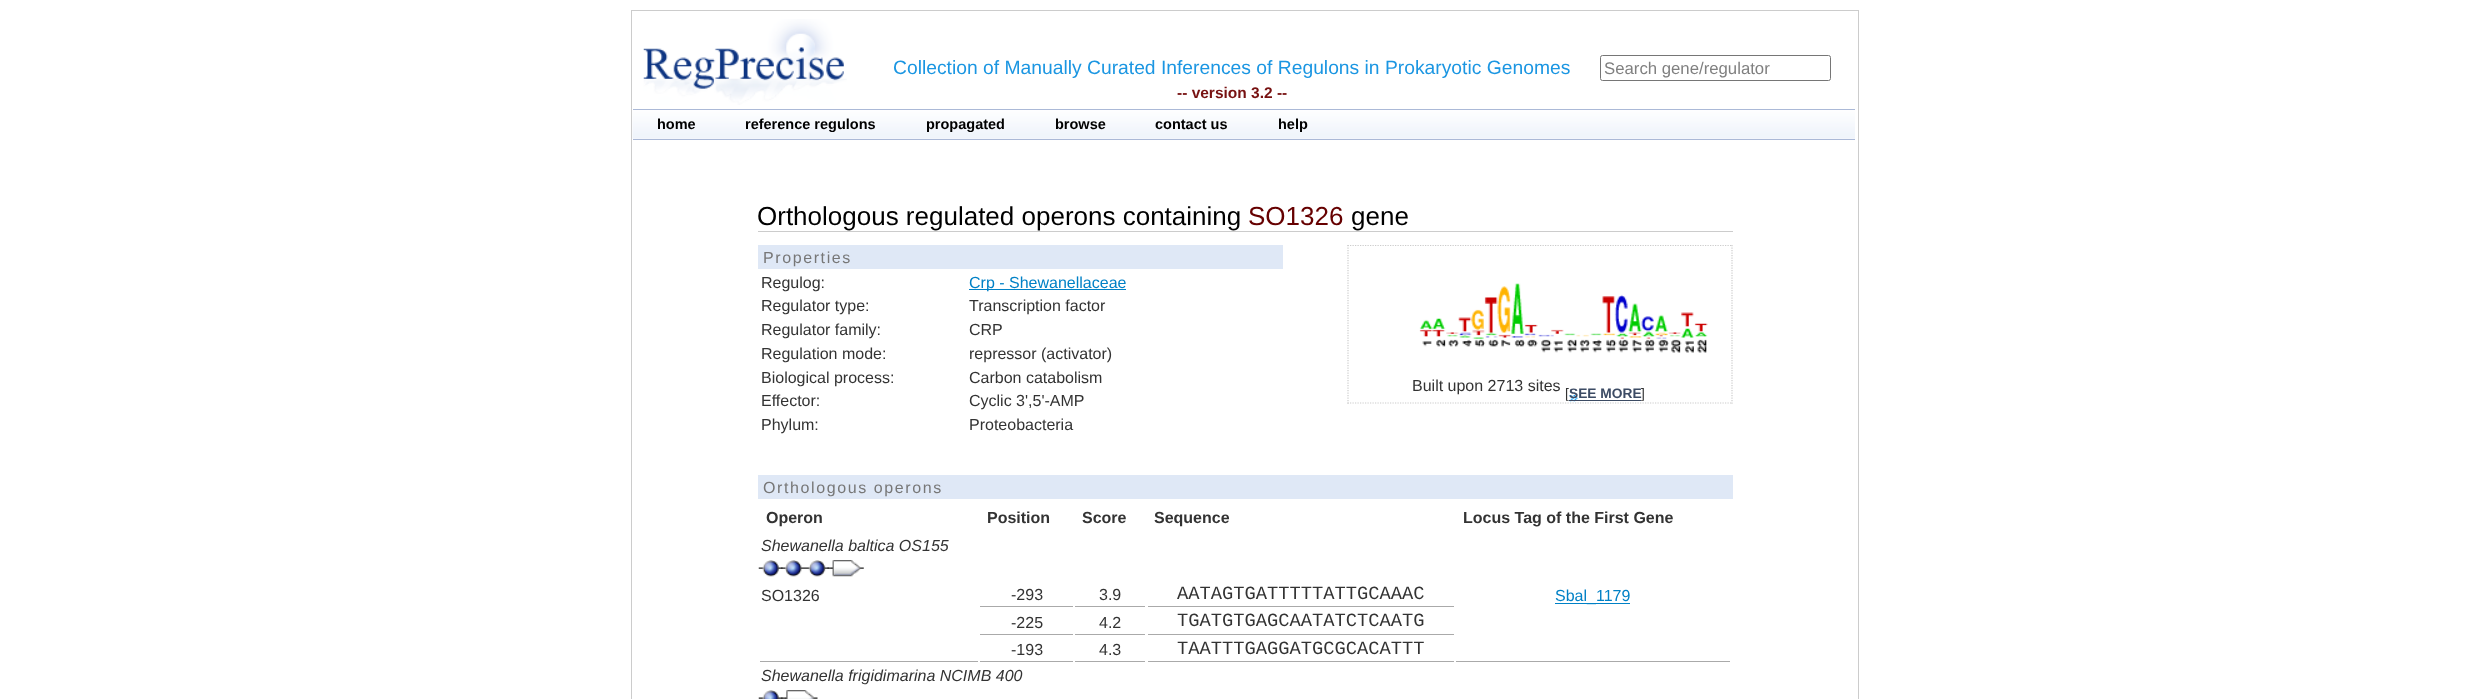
(async () => {
    const canvas = document.querySelector("canvas");
    canvas.width = 2488;
    canvas.height = 699;
    const context = canvas.getContext("2d");
    context.miterLimit = 4;
    context.fontKerning = "normal";
    function write(s, x, y, font, color) {
        context.font = font;
        context.fillStyle = color;
        context.fillText(s, x, y);
    }
    function block(x, y, w, h, color) {
        context.fillStyle = color;
        context.fillRect(x, y, w, h);
    }
    async function photo(src, x, y, w, h) {
        const img = new Image();
        img.src = src;
        await img.decode();
        context.drawImage(img, x, y, w, h);
    }

    block(0, 0, 2488, 699, "rgb(255, 255, 255)");
    context.strokeStyle = "rgb(204, 204, 204)";
    context.strokeRect(631.5, 10.5, 1227, 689);
    await photo("media/1.png", 643, 19, 204, 86);
    write("Collection of Manually Curated Inferences of Regulons in Prokaryotic Genomes", 893, 74, "19.3px Liberation Sans", "rgb(27, 150, 226)");
    write("-- version 3.2 --", 1177, 98, "bold 15.5px Liberation Sans", "rgb(119, 17, 17)");
    context.beginPath();
    context.roundRect(1600.5, 55.5, 230, 25, 2);
    context.strokeStyle = "rgb(118, 118, 118)";
    context.stroke();
    write("Search gene/regulator", 1604, 74, "16.75px Liberation Sans", "rgb(128, 128, 128)");
    await photo("media/2.png", 632, 110, 1223, 29);
    block(633, 109, 1222, 1, "rgb(171, 185, 215)");
    block(633, 139, 1222, 1, "rgb(171, 185, 215)");
    write("home", 657, 129, "bold 14.5px Liberation Sans", "rgb(0, 0, 0)");
    write("reference regulons", 745, 129, "bold 14.5px Liberation Sans", "rgb(0, 0, 0)");
    write("propagated", 926, 129, "bold 14.5px Liberation Sans", "rgb(0, 0, 0)");
    write("browse", 1055, 129, "bold 14.5px Liberation Sans", "rgb(0, 0, 0)");
    write("contact us", 1155, 129, "bold 14.5px Liberation Sans", "rgb(0, 0, 0)");
    write("help", 1278, 129, "bold 14.5px Liberation Sans", "rgb(0, 0, 0)");
    block(758, 231, 975, 1, "rgb(204, 204, 204)");
    write("Orthologous regulated operons containing", 757, 225, "26px Liberation Sans", "rgb(0, 0, 0)");
    write("SO1326", 1248, 225, "26px Liberation Sans", "rgb(102, 0, 0)");
    write("gene", 1351, 225, "26px Liberation Sans", "rgb(0, 0, 0)");
    block(758, 245, 525, 24, "rgb(223, 232, 246)");
    context.letterSpacing = "1.6px";
    write("Properties", 763, 263, "16px Liberation Sans", "rgb(119, 119, 119)");
    context.letterSpacing = "0px";
    write("Regulog:", 761, 288, "16px Liberation Sans", "rgb(51, 51, 51)");
    block(969, 289, 157, 1, "rgb(0, 129, 198)");
    write("Crp - Shewanellaceae", 969, 288, "16px Liberation Sans", "rgb(0, 129, 198)");
    write("Regulator type:", 761, 311, "16px Liberation Sans", "rgb(51, 51, 51)");
    write("Transcription factor", 969, 311, "16px Liberation Sans", "rgb(51, 51, 51)");
    write("Regulator family:", 761, 335, "16px Liberation Sans", "rgb(51, 51, 51)");
    write("CRP", 969, 335, "16px Liberation Sans", "rgb(51, 51, 51)");
    write("Regulation mode:", 761, 359, "16px Liberation Sans", "rgb(51, 51, 51)");
    write("repressor (activator)", 969, 359, "16px Liberation Sans", "rgb(51, 51, 51)");
    write("Biological process:", 761, 383, "16px Liberation Sans", "rgb(51, 51, 51)");
    write("Carbon catabolism", 969, 383, "16px Liberation Sans", "rgb(51, 51, 51)");
    write("Effector:", 761, 406, "16px Liberation Sans", "rgb(51, 51, 51)");
    write("Cyclic 3',5'-AMP", 969, 406, "16px Liberation Sans", "rgb(51, 51, 51)");
    write("Phylum:", 761, 430, "16px Liberation Sans", "rgb(51, 51, 51)");
    write("Proteobacteria", 969, 430, "16px Liberation Sans", "rgb(51, 51, 51)");
    context.beginPath();
    context.moveTo(1347.5, 245.5);
    context.lineTo(1732.5, 245.5);
    context.strokeStyle = "rgb(204, 204, 204)";
    context.lineWidth = 1.2;
    context.setLineDash([1.25, 1.25]);
    context.stroke();
    context.beginPath();
    context.moveTo(1732, 245);
    context.lineTo(1732, 404);
    context.stroke();
    context.beginPath();
    context.moveTo(1347.5, 403);
    context.lineTo(1732.5, 403);
    context.stroke();
    context.beginPath();
    context.moveTo(1348, 245);
    context.lineTo(1348, 404);
    context.stroke();
    await photo("media/3.png", 1419, 283, 289, 70);
    write("Built upon 2713 sites", 1412, 391, "16px Liberation Sans", "rgb(51, 51, 51)");
    write("[", 1565, 398, "13.75px Liberation Sans", "rgb(51, 51, 51)");
    await photo("media/4.png", 1568, 395, 10, 7);
    block(1569, 400, 72, 1, "rgb(60, 75, 100)");
    write("SEE MORE", 1569, 398, "bold 13.75px Liberation Sans", "rgb(60, 75, 100)");
    write("]", 1641, 398, "13.75px Liberation Sans", "rgb(51, 51, 51)");
    block(758, 475, 975, 24, "rgb(223, 232, 246)");
    context.letterSpacing = "1.6px";
    write("Orthologous operons", 763, 493, "16px Liberation Sans", "rgb(119, 119, 119)");
    context.letterSpacing = "0px";
    write("Operon", 766, 523, "bold 16px Liberation Sans", "rgb(51, 51, 51)");
    write("Position", 987, 523, "bold 16px Liberation Sans", "rgb(51, 51, 51)");
    write("Score", 1082, 523, "bold 16px Liberation Sans", "rgb(51, 51, 51)");
    write("Sequence", 1154, 523, "bold 16px Liberation Sans", "rgb(51, 51, 51)");
    write("Locus Tag of the First Gene", 1463, 523, "bold 16px Liberation Sans", "rgb(51, 51, 51)");
    write("Shewanella baltica OS155", 761, 551, "italic 16px Liberation Sans", "rgb(51, 51, 51)");
    await photo("media/5.png", 758, 560, 25, 17);
    await photo("media/6.png", 781, 560, 24, 17);
    await photo("media/7.png", 805, 560, 24, 17);
    await photo("media/8.png", 827, 560, 37, 17);
    write("SO1326", 761, 601, "16px Liberation Sans", "rgb(51, 51, 51)");
    block(980, 606, 93, 1, "rgb(170, 170, 170)");
    write("-293", 1011, 600, "16px Liberation Sans", "rgb(51, 51, 51)");
    block(1075, 606, 70, 1, "rgb(170, 170, 170)");
    write("3.9", 1099, 600, "16px Liberation Sans", "rgb(51, 51, 51)");
    block(1148, 606, 306, 1, "rgb(170, 170, 170)");
    write("AATAGTGATTTTTATTGCAAAC", 1177, 599, "18.75px Liberation Mono", "rgb(51, 51, 51)");
    block(1555, 603, 75, 1, "rgb(0, 129, 198)");
    write("Sbal_1179", 1555, 601, "16px Liberation Sans", "rgb(0, 129, 198)");
    block(980, 634, 93, 1, "rgb(170, 170, 170)");
    write("-225", 1011, 628, "16px Liberation Sans", "rgb(51, 51, 51)");
    block(1075, 634, 70, 1, "rgb(170, 170, 170)");
    write("4.2", 1099, 628, "16px Liberation Sans", "rgb(51, 51, 51)");
    block(1148, 634, 306, 1, "rgb(170, 170, 170)");
    write("TGATGTGAGCAATATCTCAATG", 1177, 626, "18.75px Liberation Mono", "rgb(51, 51, 51)");
    block(980, 661, 93, 1, "rgb(170, 170, 170)");
    write("-193", 1011, 655, "16px Liberation Sans", "rgb(51, 51, 51)");
    block(1075, 661, 70, 1, "rgb(170, 170, 170)");
    write("4.3", 1099, 655, "16px Liberation Sans", "rgb(51, 51, 51)");
    block(1148, 661, 306, 1, "rgb(170, 170, 170)");
    write("TAATTTGAGGATGCGCACATTT", 1177, 654, "18.75px Liberation Mono", "rgb(51, 51, 51)");
    block(760, 661, 218, 1, "rgb(170, 170, 170)");
    block(1456, 661, 274, 1, "rgb(170, 170, 170)");
    write("Shewanella frigidimarina NCIMB 400", 761, 681, "italic 16px Liberation Sans", "rgb(51, 51, 51)");
    await photo("media/9.png", 758, 690, 25, 9);
    await photo("media/10.png", 781, 690, 37, 9);
})();
